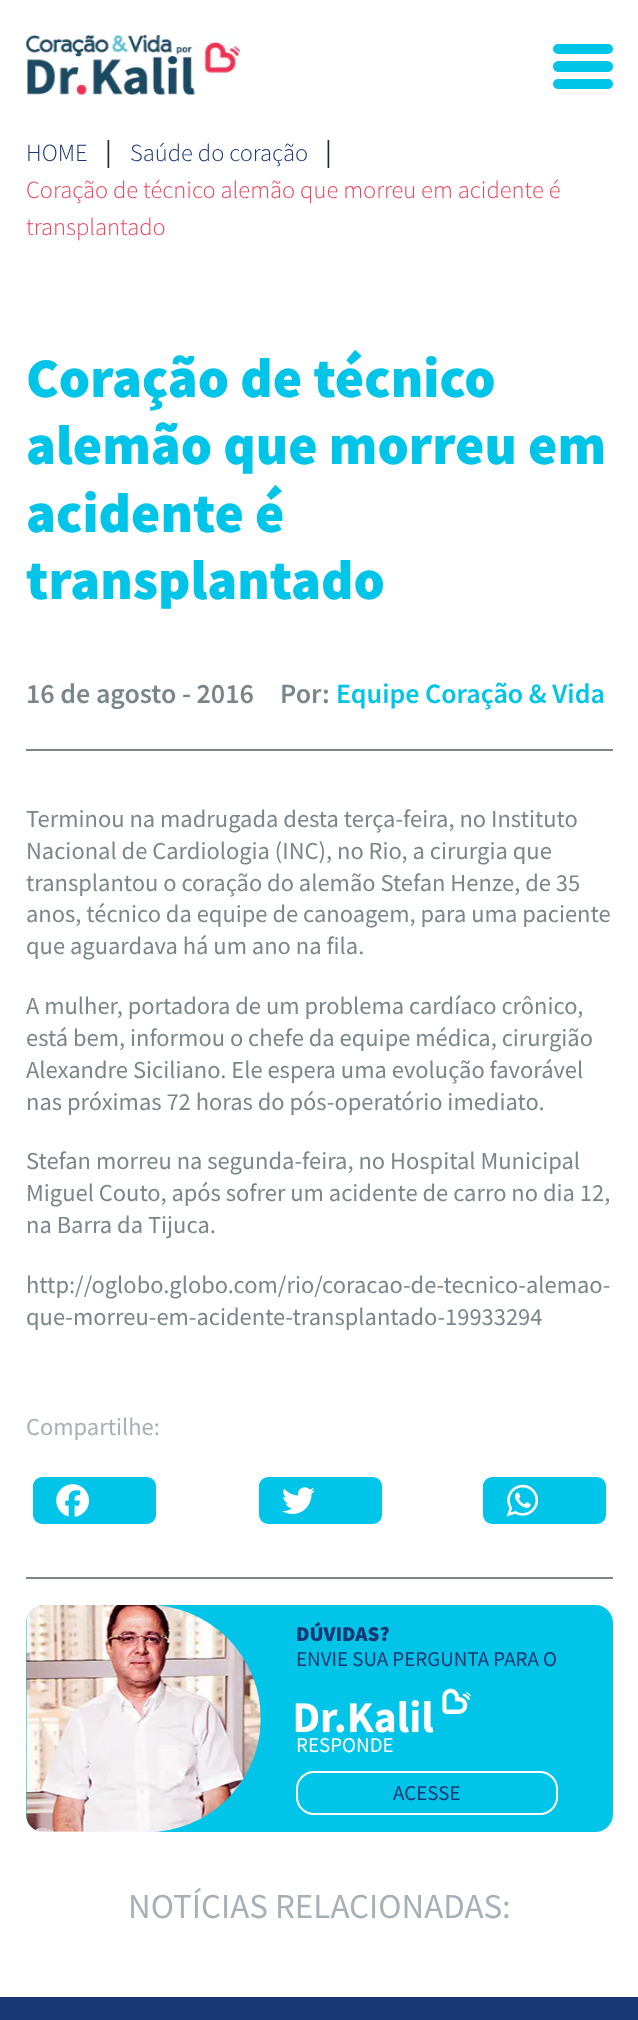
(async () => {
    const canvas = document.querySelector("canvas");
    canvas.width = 638;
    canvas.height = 2020;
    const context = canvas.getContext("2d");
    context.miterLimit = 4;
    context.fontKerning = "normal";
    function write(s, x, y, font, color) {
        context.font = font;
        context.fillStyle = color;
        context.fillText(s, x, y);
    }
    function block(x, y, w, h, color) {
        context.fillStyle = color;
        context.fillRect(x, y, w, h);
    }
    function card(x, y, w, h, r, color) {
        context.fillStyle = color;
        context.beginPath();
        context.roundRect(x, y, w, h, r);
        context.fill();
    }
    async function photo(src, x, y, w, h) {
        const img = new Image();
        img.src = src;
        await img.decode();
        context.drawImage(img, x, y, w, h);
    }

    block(0, 0, 638, 2020, "rgb(255, 255, 255)");
    await photo("media/1.png", 26, 35, 214, 60);
    card(553, 44, 60, 10, 5, "rgb(0, 197, 232)");
    card(553, 61, 60, 11, 5.5, "rgb(0, 197, 232)");
    card(553, 79, 60, 10, 5, "rgb(0, 197, 232)");
    write("HOME", 26, 161, "300 24.5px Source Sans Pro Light", "rgb(23, 54, 115)");
    write("|", 105, 161, "28px Source Sans Pro", "rgb(33, 37, 41)");
    write("Saúde do coração", 130, 161, "300 24.5px Source Sans Pro Light", "rgb(23, 54, 115)");
    write("|", 325, 161, "28px Source Sans Pro", "rgb(33, 37, 41)");
    write("Coração de técnico alemão que morreu em acidente é", 26, 198, "300 24.5px Source Sans Pro Light", "rgb(240, 65, 91)");
    write("transplantado", 26, 235, "300 24.5px Source Sans Pro Light", "rgb(240, 65, 91)");
    write("Coração de técnico", 26, 397, "900 56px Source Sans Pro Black", "rgb(0, 197, 232)");
    write("alemão que morreu em", 26, 464, "900 56px Source Sans Pro Black", "rgb(0, 197, 232)");
    write("acidente é", 26, 532, "900 56px Source Sans Pro Black", "rgb(0, 197, 232)");
    write("transplantado", 26, 599, "900 56px Source Sans Pro Black", "rgb(0, 197, 232)");
    block(26, 749, 587, 2, "rgb(123, 134, 139)");
    write("16 de agosto - 2016", 26, 703, "600 28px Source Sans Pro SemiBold", "rgb(123, 134, 139)");
    write("Por:", 280, 703, "600 28px Source Sans Pro SemiBold", "rgb(123, 134, 139)");
    write("Equipe Coração & Vida", 336, 703, "600 28px Source Sans Pro SemiBold", "rgb(0, 197, 232)");
    block(26, 1577, 587, 2, "rgb(123, 134, 139)");
    write("Terminou na madrugada desta terça-feira, no Instituto", 26, 827, "24.5px Source Sans Pro", "rgb(123, 134, 139)");
    write("Nacional de Cardiologia (INC), no Rio, a cirurgia que", 26, 859, "24.5px Source Sans Pro", "rgb(123, 134, 139)");
    write("transplantou o coração do alemão Stefan Henze, de 35", 26, 891, "24.5px Source Sans Pro", "rgb(123, 134, 139)");
    write("anos, técnico da equipe de canoagem, para uma paciente", 26, 922, "24.5px Source Sans Pro", "rgb(123, 134, 139)");
    write("que aguardava há um ano na fila.", 26, 954, "24.5px Source Sans Pro", "rgb(123, 134, 139)");
    write("A mulher, portadora de um problema cardíaco crônico,", 26, 1014, "24.5px Source Sans Pro", "rgb(123, 134, 139)");
    write("está bem, informou o chefe da equipe médica, cirurgião", 26, 1046, "24.5px Source Sans Pro", "rgb(123, 134, 139)");
    write("Alexandre Siciliano. Ele espera uma evolução favorável", 26, 1078, "24.5px Source Sans Pro", "rgb(123, 134, 139)");
    write("nas próximas 72 horas do pós-operatório imediato.", 26, 1110, "24.5px Source Sans Pro", "rgb(123, 134, 139)");
    write("Stefan morreu na segunda-feira, no Hospital Municipal", 26, 1169, "24.5px Source Sans Pro", "rgb(123, 134, 139)");
    write("Miguel Couto, após sofrer um acidente de carro no dia 12,", 26, 1201, "24.5px Source Sans Pro", "rgb(123, 134, 139)");
    write("na Barra da Tijuca.", 26, 1233, "24.5px Source Sans Pro", "rgb(123, 134, 139)");
    write("http://oglobo.globo.com/rio/coracao-de-tecnico-alemao-", 26, 1293, "24.5px Source Sans Pro", "rgb(123, 134, 139)");
    write("que-morreu-em-acidente-transplantado-19933294", 26, 1325, "24.5px Source Sans Pro", "rgb(123, 134, 139)");
    write("Compartilhe:", 26, 1435, "24.5px Source Sans Pro", "rgb(168, 176, 183)");
    card(33, 1477, 123, 47, 9, "rgb(0, 197, 232)");
    await photo("media/2.png", 56, 1484, 33, 33);
    card(259, 1477, 123, 47, 9, "rgb(0, 197, 232)");
    await photo("media/3.png", 282, 1487, 33, 27);
    card(483, 1477, 123, 47, 9, "rgb(0, 197, 232)");
    await photo("media/4.png", 506, 1484, 33, 33);
    card(26, 1605, 587, 227, 18, "rgb(0, 197, 232)");
    await photo("media/5.png", 26, 1605, 235, 227);
    write("DÚVIDAS?", 296, 1641, "900 21px Source Sans Pro Black", "rgb(23, 54, 115)");
    write("ENVIE SUA PERGUNTA PARA O", 296, 1666, "21px Source Sans Pro", "rgb(23, 54, 115)");
    await photo("media/6.png", 295, 1688, 176, 45);
    write("RESPONDE", 296, 1752, "21px Source Sans Pro", "rgb(255, 255, 255)");
    context.beginPath();
    context.roundRect(297, 1772, 260, 42, 17);
    context.strokeStyle = "rgb(255, 255, 255)";
    context.lineWidth = 2;
    context.stroke();
    write("ACESSE", 393, 1800, "21px Source Sans Pro", "rgb(23, 54, 115)");
    write("NOTÍCIAS RELACIONADAS:", 128, 1918, "35px Source Sans Pro", "rgb(168, 176, 183)");
    block(0, 1997, 638, 23, "rgb(23, 54, 115)");
})();
